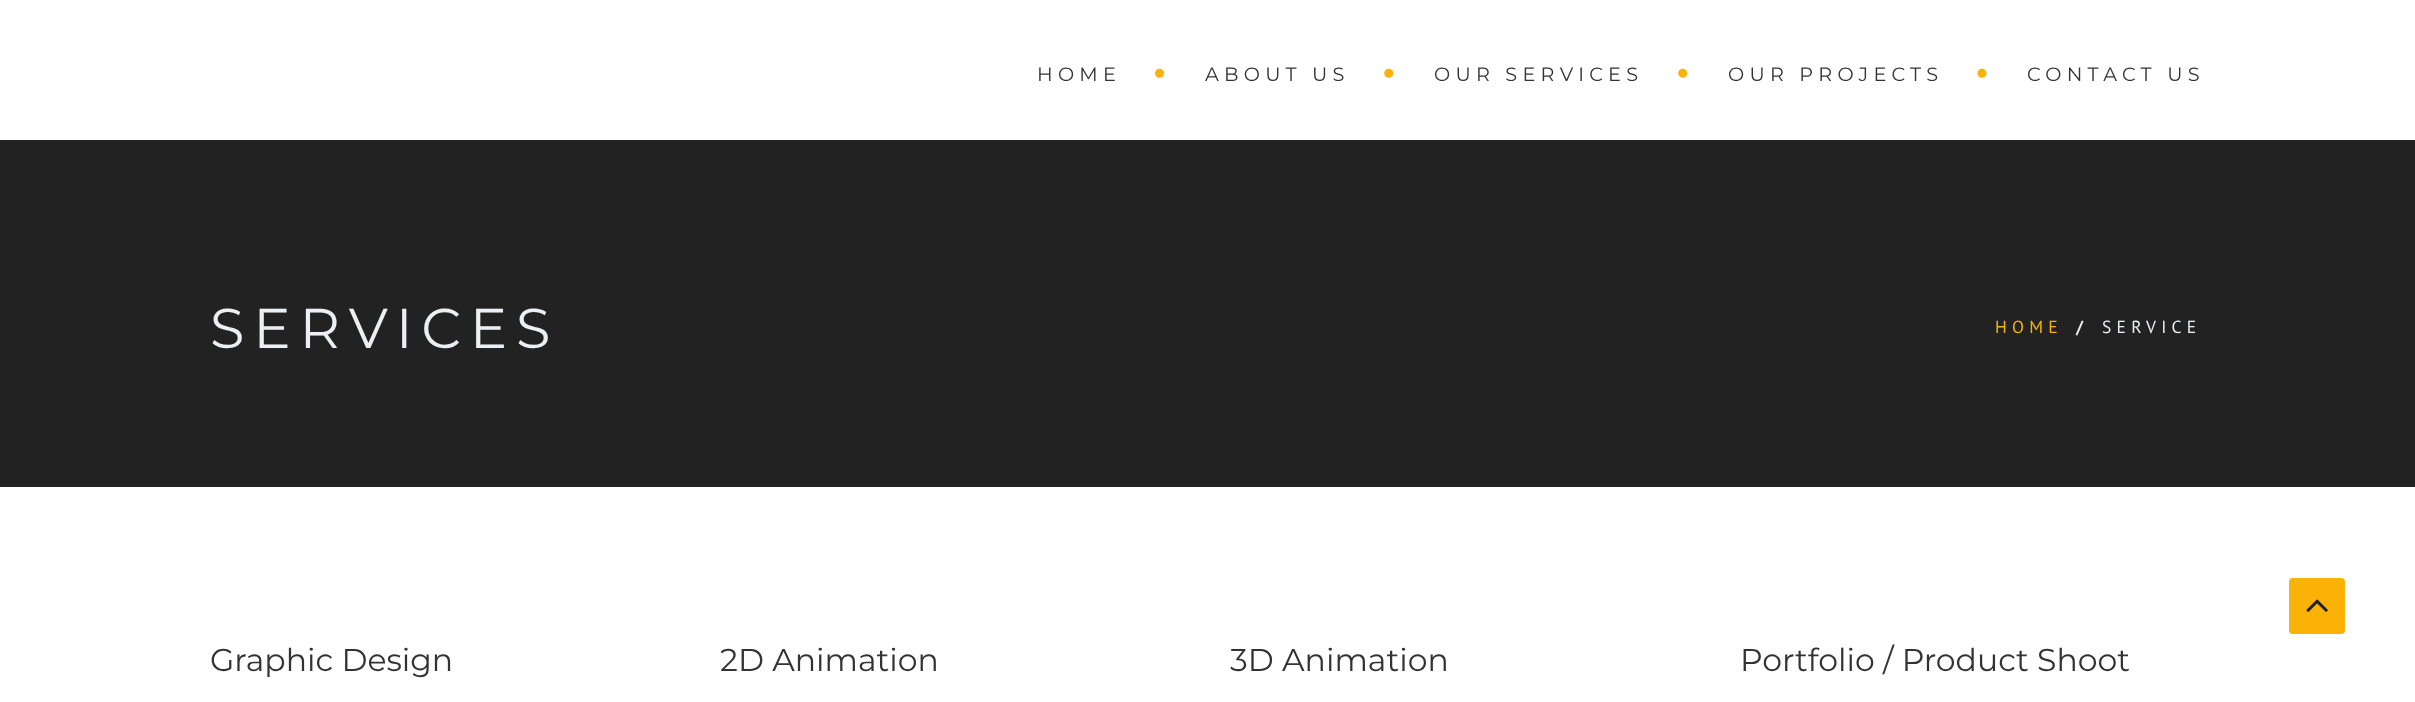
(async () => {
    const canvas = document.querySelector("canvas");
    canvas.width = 2415;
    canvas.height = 702;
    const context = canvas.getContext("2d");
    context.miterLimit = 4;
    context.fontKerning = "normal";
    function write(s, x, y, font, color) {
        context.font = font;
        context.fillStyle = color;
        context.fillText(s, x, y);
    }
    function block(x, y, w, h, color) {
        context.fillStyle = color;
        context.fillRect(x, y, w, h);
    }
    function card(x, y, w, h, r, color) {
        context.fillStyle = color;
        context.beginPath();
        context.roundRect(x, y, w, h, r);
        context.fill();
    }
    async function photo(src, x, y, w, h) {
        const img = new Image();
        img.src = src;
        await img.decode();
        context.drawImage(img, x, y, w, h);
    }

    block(0, 0, 2415, 702, "rgb(34, 34, 34)");
    block(0, 0, 2415, 140, "rgb(255, 255, 255)");
    context.letterSpacing = "5.25px";
    write("HOME", 1037, 81, "19.25px Montserrat", "rgb(51, 51, 51)");
    await photo("media/1.png", 1155, 68, 9, 10);
    write("ABOUT US", 1205, 81, "19.25px Montserrat", "rgb(51, 51, 51)");
    await photo("media/2.png", 1384, 68, 10, 10);
    write("OUR SERVICES", 1434, 81, "19.25px Montserrat", "rgb(51, 51, 51)");
    await photo("media/2.png", 1678, 68, 10, 10);
    write("OUR PROJECTS", 1728, 81, "19.25px Montserrat", "rgb(51, 51, 51)");
    await photo("media/3.png", 1977, 68, 10, 10);
    write("CONTACT US", 2027, 81, "19.25px Montserrat", "rgb(51, 51, 51)");
    context.letterSpacing = "8.75px";
    write("SERVICES", 210, 348, "56px Montserrat", "rgb(236, 239, 243)");
    context.letterSpacing = "5.25px";
    write("HOME", 1995, 333, "17.5px PT Sans", "rgb(250, 178, 7)");
    write("/", 2076, 333, "bold 17.5px PT Sans", "rgb(236, 239, 243)");
    write("SERVICE", 2102, 333, "17.5px PT Sans", "rgb(236, 239, 243)");
    block(0, 487, 2415, 215, "rgb(255, 255, 255)");
    card(2289, 578, 56, 56, 4, "rgb(250, 178, 7)");
    await photo("media/4.png", 2306, 599, 22, 13);
    context.letterSpacing = "0px";
    write("Graphic Design", 210, 671, "31.5px Montserrat", "rgb(51, 51, 51)");
    write("2D Animation", 720, 671, "31.5px Montserrat", "rgb(51, 51, 51)");
    write("3D Animation", 1230, 671, "31.5px Montserrat", "rgb(51, 51, 51)");
    write("Portfolio / Product Shoot", 1740, 671, "31.5px Montserrat", "rgb(51, 51, 51)");
})();
